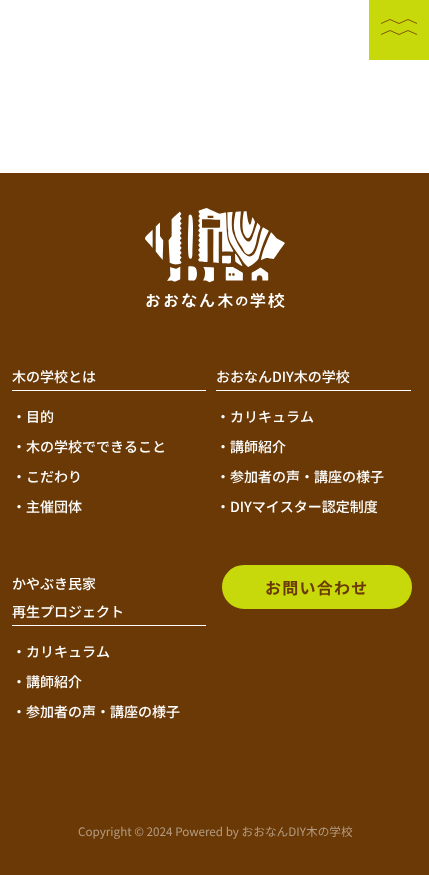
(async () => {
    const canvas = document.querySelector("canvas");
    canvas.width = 429;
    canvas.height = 875;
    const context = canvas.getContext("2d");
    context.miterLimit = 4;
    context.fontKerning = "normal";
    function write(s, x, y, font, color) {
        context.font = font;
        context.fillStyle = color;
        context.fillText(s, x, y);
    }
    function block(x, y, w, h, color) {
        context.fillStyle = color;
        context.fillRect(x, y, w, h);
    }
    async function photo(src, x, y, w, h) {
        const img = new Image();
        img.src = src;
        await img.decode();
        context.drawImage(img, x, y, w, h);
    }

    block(0, 0, 429, 875, "rgb(255, 255, 255)");
    block(369, 0, 60, 60, "rgb(200, 217, 11)");
    context.beginPath();
    context.moveTo(417, 23.5);
    context.lineTo(408, 19.5);
    context.lineTo(399, 23.5);
    context.lineTo(390, 19.5);
    context.lineTo(381, 23.5);
    context.moveTo(417, 34.5);
    context.lineTo(408, 30.5);
    context.lineTo(399, 34.5);
    context.lineTo(390, 30.5);
    context.lineTo(381, 34.5);
    context.strokeStyle = "rgb(106, 57, 6)";
    context.lineWidth = 0.8;
    context.stroke();
    block(0, 173, 429, 702, "rgb(106, 57, 6)");
    await photo("media/1.png", 145, 208, 140, 100);
    block(12, 390, 194, 1, "rgb(255, 255, 255)");
    write("木の学校とは", 12, 382, "500 14px Noto Sans JP", "rgb(255, 255, 255)");
    write("・目的", 12, 422, "500 14px Noto Sans JP", "rgb(255, 255, 255)");
    write("・木の学校でできること", 12, 452, "500 14px Noto Sans JP", "rgb(255, 255, 255)");
    write("・こだわり", 12, 482, "500 14px Noto Sans JP", "rgb(255, 255, 255)");
    write("・主催団体", 12, 512, "500 14px Noto Sans JP", "rgb(255, 255, 255)");
    block(216, 390, 195, 1, "rgb(255, 255, 255)");
    write("おおなんDIY木の学校", 216, 382, "500 14px Noto Sans JP", "rgb(255, 255, 255)");
    write("・カリキュラム", 216, 422, "500 14px Noto Sans JP", "rgb(255, 255, 255)");
    write("・講師紹介", 216, 452, "500 14px Noto Sans JP", "rgb(255, 255, 255)");
    write("・参加者の声・講座の様子", 216, 482, "500 14px Noto Sans JP", "rgb(255, 255, 255)");
    write("・DIYマイスター認定制度", 216, 512, "500 14px Noto Sans JP", "rgb(255, 255, 255)");
    block(12, 625, 194, 1, "rgb(255, 255, 255)");
    write("かやぶき民家", 12, 589, "500 14px Noto Sans JP", "rgb(255, 255, 255)");
    write("再生プロジェクト", 12, 617, "500 14px Noto Sans JP", "rgb(255, 255, 255)");
    write("・カリキュラム", 12, 657, "500 14px Noto Sans JP", "rgb(255, 255, 255)");
    write("・講師紹介", 12, 687, "500 14px Noto Sans JP", "rgb(255, 255, 255)");
    write("・参加者の声・講座の様子", 12, 717, "500 14px Noto Sans JP", "rgb(255, 255, 255)");
    context.fillStyle = "rgb(200, 217, 11)";
    context.beginPath();
    context.roundRect(223, 566, 188, 42, 21);
    context.fill();
    context.strokeStyle = "rgb(200, 217, 11)";
    context.lineWidth = 2;
    context.stroke();
    context.letterSpacing = "1.25px";
    write("お問い合わせ", 265, 594, "bold 16px Noto Sans JP", "rgb(106, 57, 6)");
    context.letterSpacing = "0px";
    write("Copyright © 2024 Powered by おおなんDIY木の学校", 78, 836, "11.7px Noto Sans JP", "rgb(180, 156, 130)");
})();
